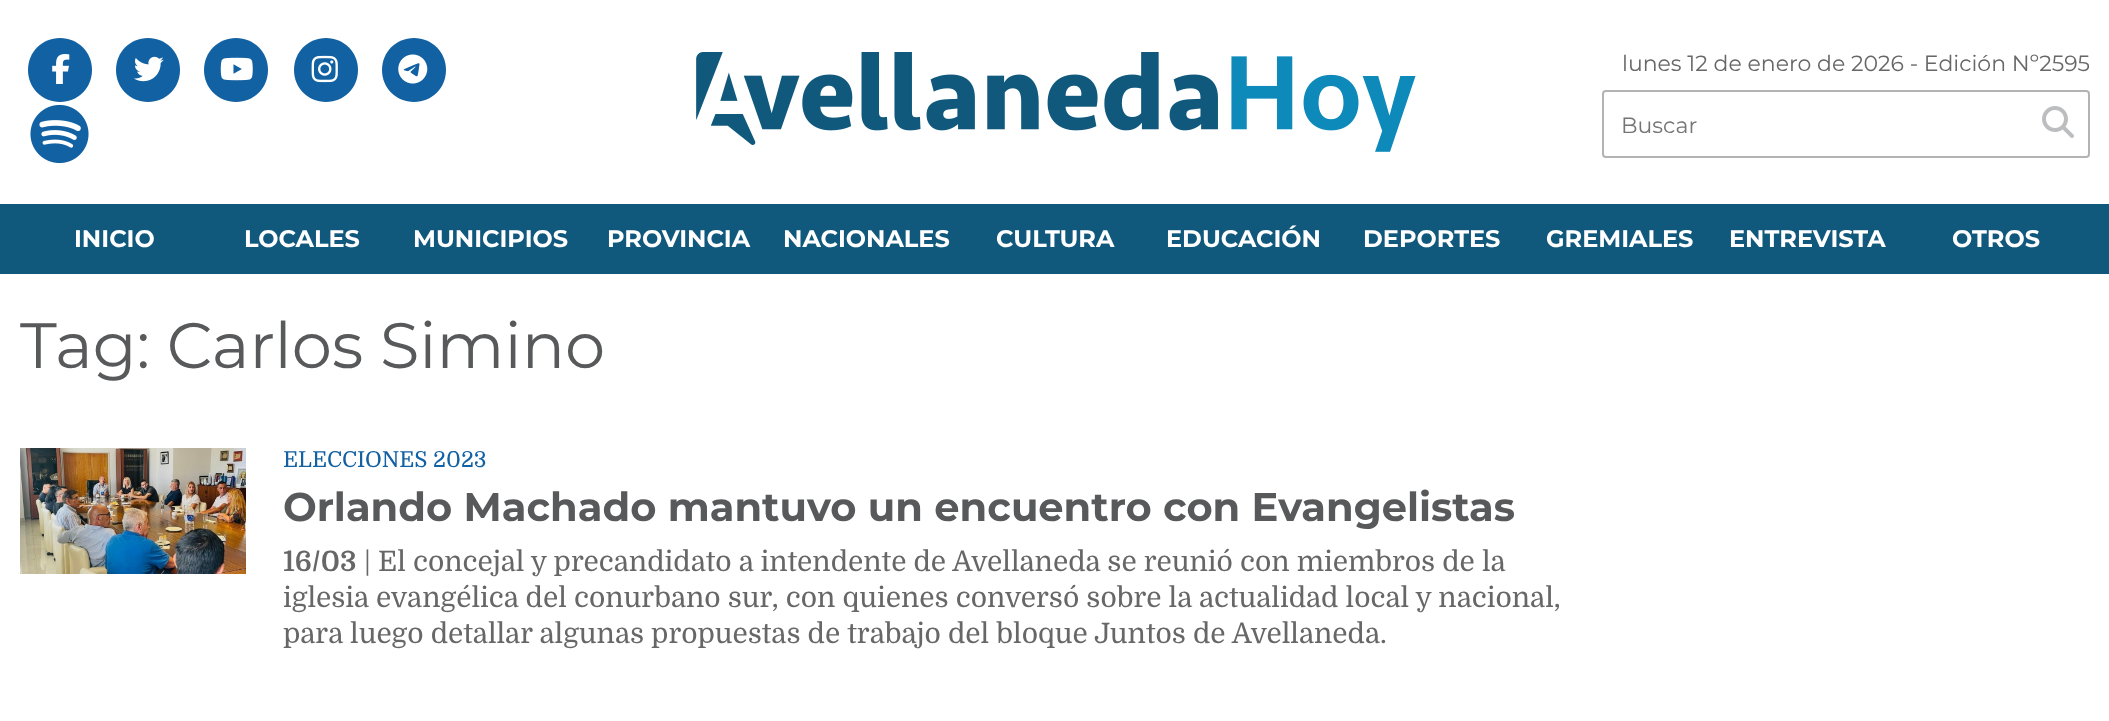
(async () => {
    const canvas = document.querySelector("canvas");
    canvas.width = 2109;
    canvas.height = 721;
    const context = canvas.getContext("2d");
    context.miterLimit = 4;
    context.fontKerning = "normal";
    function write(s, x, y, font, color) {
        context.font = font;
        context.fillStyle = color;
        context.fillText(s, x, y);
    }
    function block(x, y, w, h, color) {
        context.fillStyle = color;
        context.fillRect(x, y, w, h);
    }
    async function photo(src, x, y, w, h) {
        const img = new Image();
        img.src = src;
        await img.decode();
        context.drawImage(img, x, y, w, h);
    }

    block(0, 0, 2109, 721, "rgb(255, 255, 255)");
    context.fillStyle = "rgb(18, 97, 163)";
    context.beginPath();
    context.moveTo(60, 102);
    context.bezierCurveTo(78, 102, 92, 88, 92, 70);
    context.bezierCurveTo(92, 52, 78, 38, 60, 38);
    context.bezierCurveTo(42, 38, 28, 52, 28, 70);
    context.bezierCurveTo(28, 88, 42, 102, 60, 102);
    context.closePath();
    context.fill();
    await photo("media/1.png", 52, 54, 18, 30);
    context.beginPath();
    context.moveTo(148, 102);
    context.bezierCurveTo(166, 102, 180, 88, 180, 70);
    context.bezierCurveTo(180, 52, 166, 38, 148, 38);
    context.bezierCurveTo(130, 38, 116, 52, 116, 70);
    context.bezierCurveTo(116, 88, 130, 102, 148, 102);
    context.closePath();
    context.fill();
    await photo("media/2.png", 134, 56, 30, 26);
    context.beginPath();
    context.moveTo(236, 102);
    context.bezierCurveTo(254, 102, 268, 88, 268, 70);
    context.bezierCurveTo(268, 52, 254, 38, 236, 38);
    context.bezierCurveTo(218, 38, 204, 52, 204, 70);
    context.bezierCurveTo(204, 88, 218, 102, 236, 102);
    context.closePath();
    context.fill();
    await photo("media/3.png", 220, 57, 33, 24);
    context.beginPath();
    context.moveTo(326, 102);
    context.bezierCurveTo(344, 102, 358, 88, 358, 70);
    context.bezierCurveTo(358, 52, 344, 38, 326, 38);
    context.bezierCurveTo(308, 38, 294, 52, 294, 70);
    context.bezierCurveTo(294, 88, 308, 102, 326, 102);
    context.closePath();
    context.fill();
    await photo("media/4.png", 311, 55, 27, 28);
    context.beginPath();
    context.moveTo(414, 102);
    context.bezierCurveTo(432, 102, 446, 88, 446, 70);
    context.bezierCurveTo(446, 52, 432, 38, 414, 38);
    context.bezierCurveTo(396, 38, 382, 52, 382, 70);
    context.bezierCurveTo(382, 88, 396, 102, 414, 102);
    context.closePath();
    context.fill();
    await photo("media/5.png", 398, 54, 30, 30);
    await photo("media/6.png", 30, 104, 59, 60);
    await photo("media/7.png", 696, 52, 720, 100);
    write("lunes 12 de enero de 2026 - Edición Nº2595", 1622, 71, "22px Montserrat", "rgb(103, 103, 103)");
    context.beginPath();
    context.roundRect(1603, 91, 486, 66, 3);
    context.strokeStyle = "rgb(179, 179, 179)";
    context.lineWidth = 2;
    context.stroke();
    write("Buscar", 1621, 133, "22px Montserrat", "rgb(117, 117, 117)");
    await photo("media/8.png", 2042, 106, 32, 32);
    block(0, 204, 2109, 70, "rgb(16, 88, 124)");
    write("INICIO", 74, 247, "bold 24px Montserrat", "rgb(255, 255, 255)");
    write("LOCALES", 244, 247, "bold 24px Montserrat", "rgb(255, 255, 255)");
    write("MUNICIPIOS", 413, 247, "bold 24px Montserrat", "rgb(255, 255, 255)");
    write("PROVINCIA", 607, 247, "bold 24px Montserrat", "rgb(255, 255, 255)");
    write("NACIONALES", 783, 247, "bold 24px Montserrat", "rgb(255, 255, 255)");
    write("CULTURA", 996, 247, "bold 24px Montserrat", "rgb(255, 255, 255)");
    write("EDUCACIÓN", 1166, 247, "bold 24px Montserrat", "rgb(255, 255, 255)");
    write("DEPORTES", 1363, 247, "bold 24px Montserrat", "rgb(255, 255, 255)");
    write("GREMIALES", 1546, 247, "bold 24px Montserrat", "rgb(255, 255, 255)");
    write("ENTREVISTA", 1729, 247, "bold 24px Montserrat", "rgb(255, 255, 255)");
    write("OTROS", 1952, 247, "bold 24px Montserrat", "rgb(255, 255, 255)");
    write("Tag: Carlos Simino", 20, 368, "64px Montserrat", "rgb(88, 89, 91)");
    await photo("media/9.png", 20, 448, 226, 126);
    write("ELECCIONES 2023", 283, 467, "22px Domine", "rgb(18, 97, 163)");
    write("Orlando Machado mantuvo un encuentro con Evangelistas", 283, 521, "bold 40px Montserrat", "rgb(88, 89, 91)");
    write("16/03", 283, 571, "bold 28px Domine", "rgb(103, 103, 103)");
    write("| El concejal y precandidato a intendente de Avellaneda se reunió con miembros de la", 364, 571, "28px Domine", "rgb(103, 103, 103)");
    write("iglesia evangélica del conurbano sur, con quienes conversó sobre la actualidad local y nacional,", 283, 607, "28px Domine", "rgb(103, 103, 103)");
    write("para luego detallar algunas propuestas de trabajo del bloque Juntos de Avellaneda.", 283, 643, "28px Domine", "rgb(103, 103, 103)");
})();
